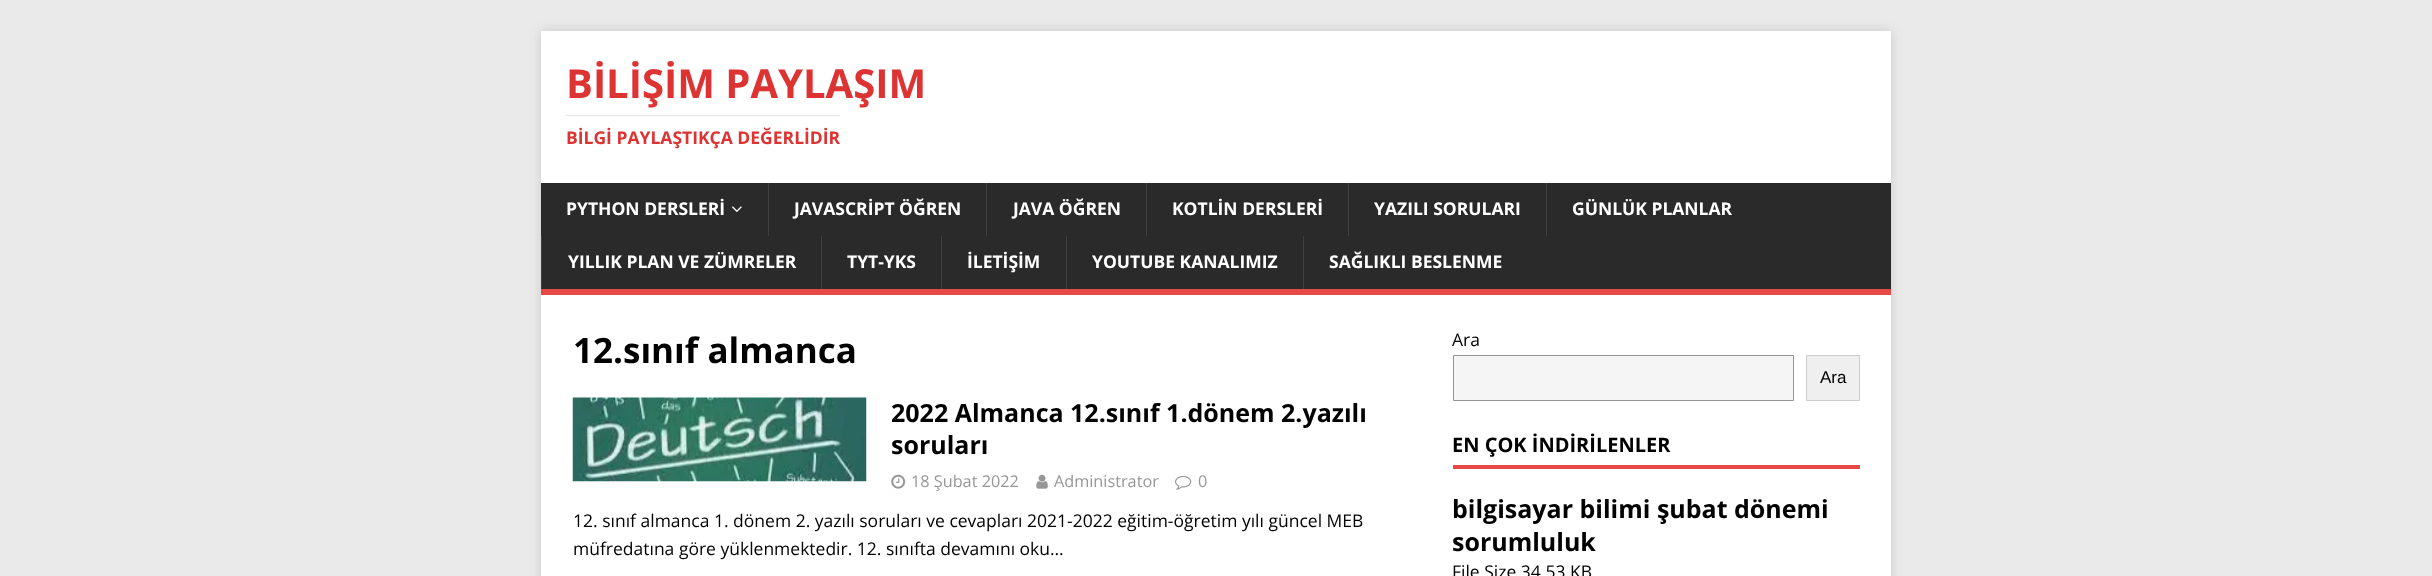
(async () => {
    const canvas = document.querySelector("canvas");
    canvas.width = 2432;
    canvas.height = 576;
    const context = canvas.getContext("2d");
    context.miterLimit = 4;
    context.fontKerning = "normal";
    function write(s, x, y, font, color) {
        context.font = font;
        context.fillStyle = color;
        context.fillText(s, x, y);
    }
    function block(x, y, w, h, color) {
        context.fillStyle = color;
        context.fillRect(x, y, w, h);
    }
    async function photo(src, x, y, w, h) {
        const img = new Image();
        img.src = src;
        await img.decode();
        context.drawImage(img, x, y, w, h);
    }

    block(0, 0, 2432, 576, "rgb(234, 234, 234)");
    context.fillStyle = "rgba(50, 50, 50, 0.17)";
    context.filter = "blur(6px)";
    context.beginPath();
    context.rect(541, 31, 1350, 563);
    context.fill();
    context.filter = "none";
    block(541, 31, 1350, 152, "rgb(255, 255, 255)");
    write("BİLİŞİM PAYLAŞIM", 566, 98, "bold 40px Open Sans", "rgb(221, 51, 51)");
    block(566, 115, 274, 1, "rgb(229, 229, 229)");
    write("BİLGİ PAYLAŞTIKÇA DEĞERLİDİR", 566, 144, "bold 17.5px Open Sans", "rgb(221, 51, 51)");
    block(541, 183, 1350, 106, "rgb(42, 42, 42)");
    block(541, 289, 1350, 6, "rgb(230, 73, 70)");
    write("PYTHON DERSLERİ", 566, 215, "bold 17.5px Open Sans", "rgb(255, 255, 255)");
    await photo("media/1.png", 732, 206, 10, 6);
    block(768, 183, 1, 53, "rgb(63, 63, 63)");
    write("JAVASCRİPT ÖĞREN", 794, 215, "bold 17.5px Open Sans", "rgb(255, 255, 255)");
    block(986, 183, 1, 53, "rgb(63, 63, 63)");
    write("JAVA ÖĞREN", 1013, 215, "bold 17.5px Open Sans", "rgb(255, 255, 255)");
    block(1146, 183, 1, 53, "rgb(63, 63, 63)");
    write("KOTLİN DERSLERİ", 1172, 215, "bold 17.5px Open Sans", "rgb(255, 255, 255)");
    block(1348, 183, 1, 53, "rgb(63, 63, 63)");
    write("YAZILI SORULARI", 1374, 215, "bold 17.5px Open Sans", "rgb(255, 255, 255)");
    block(1546, 183, 1, 53, "rgb(63, 63, 63)");
    write("GÜNLÜK PLANLAR", 1572, 215, "bold 17.5px Open Sans", "rgb(255, 255, 255)");
    block(541, 236, 1, 53, "rgb(63, 63, 63)");
    write("YILLIK PLAN VE ZÜMRELER", 568, 268, "bold 17.5px Open Sans", "rgb(255, 255, 255)");
    block(821, 236, 1, 53, "rgb(63, 63, 63)");
    write("TYT-YKS", 847, 268, "bold 17.5px Open Sans", "rgb(255, 255, 255)");
    block(941, 236, 1, 53, "rgb(63, 63, 63)");
    write("İLETİŞİM", 967, 268, "bold 17.5px Open Sans", "rgb(255, 255, 255)");
    block(1066, 236, 1, 53, "rgb(63, 63, 63)");
    write("YOUTUBE KANALIMIZ", 1092, 268, "bold 17.5px Open Sans", "rgb(255, 255, 255)");
    block(1303, 236, 1, 53, "rgb(63, 63, 63)");
    write("SAĞLIKLI BESLENME", 1329, 268, "bold 17.5px Open Sans", "rgb(255, 255, 255)");
    block(541, 295, 1350, 281, "rgb(255, 255, 255)");
    write("12.sınıf almanca", 573, 363, "bold 35px Open Sans", "rgb(0, 0, 0)");
    await photo("media/2.png", 572, 397, 295, 85);
    write("2022 Almanca 12.sınıf 1.dönem 2.yazılı", 891, 422, "bold 25px Open Sans", "rgb(0, 0, 0)");
    write("soruları", 891, 454, "bold 25px Open Sans", "rgb(0, 0, 0)");
    await photo("media/3.png", 891, 474, 15, 15);
    write("18 Şubat 2022", 911, 487, "16.25px Open Sans", "rgb(151, 151, 151)");
    await photo("media/4.png", 1036, 474, 12, 15);
    write("Administrator", 1054, 487, "16.25px Open Sans", "rgb(151, 151, 151)");
    await photo("media/5.png", 1175, 475, 17, 15);
    write("0", 1198, 487, "16.25px Open Sans", "rgb(151, 151, 151)");
    write("12. sınıf almanca 1. dönem 2. yazılı soruları ve cevapları 2021-2022 eğitim-öğretim yılı güncel MEB", 573, 527, "17.5px Open Sans", "rgb(0, 0, 0)");
    write("müfredatına göre yüklenmektedir. 12. sınıfta devamını oku…", 573, 555, "17.5px Open Sans", "rgb(0, 0, 0)");
    write("Ara", 1452, 346, "17.5px Open Sans", "rgb(0, 0, 0)");
    context.fillStyle = "rgb(245, 245, 245)";
    context.beginPath();
    context.rect(1453.5, 355.5, 340, 45);
    context.fill();
    context.strokeStyle = "rgb(148, 148, 148)";
    context.stroke();
    context.fillStyle = "rgb(239, 239, 239)";
    context.beginPath();
    context.rect(1806.5, 355.5, 53, 45);
    context.fill();
    context.strokeStyle = "rgb(204, 204, 204)";
    context.stroke();
    write("Ara", 1820, 383, "17px Liberation Sans", "rgb(0, 0, 0)");
    block(1453, 465, 407, 4, "rgb(230, 73, 70)");
    write("EN ÇOK İNDİRİLENLER", 1452, 452, "bold 20px Open Sans", "rgb(0, 0, 0)");
    write("bilgisayar bilimi şubat dönemi", 1452, 518, "bold 25px Open Sans", "rgb(0, 0, 0)");
    write("sorumluluk", 1452, 551, "bold 25px Open Sans", "rgb(0, 0, 0)");
    write("File Size 34.53 KB", 1452, 578, "17.5px Open Sans", "rgb(0, 0, 0)");
})();
